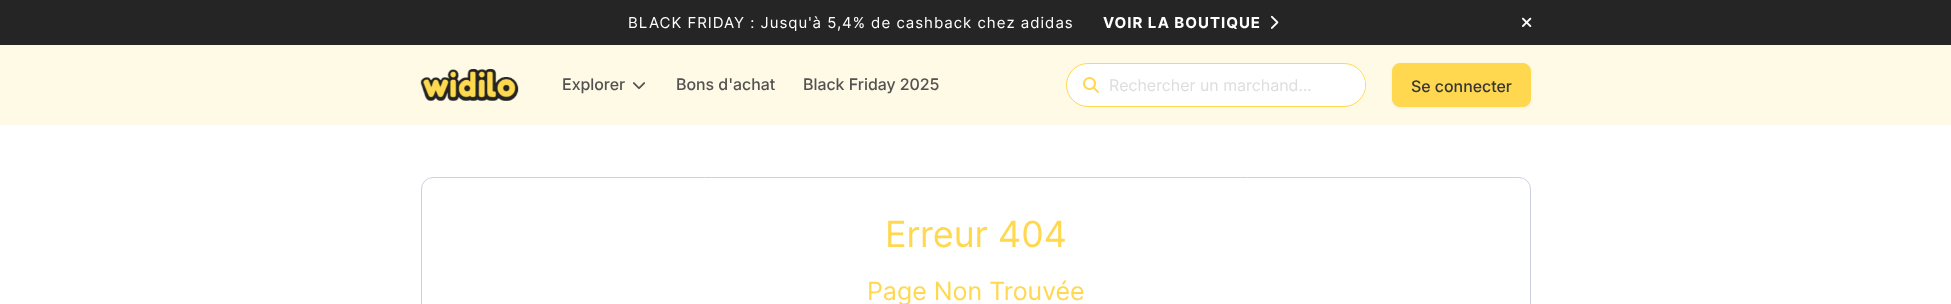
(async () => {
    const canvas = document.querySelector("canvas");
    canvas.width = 1951;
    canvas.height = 304;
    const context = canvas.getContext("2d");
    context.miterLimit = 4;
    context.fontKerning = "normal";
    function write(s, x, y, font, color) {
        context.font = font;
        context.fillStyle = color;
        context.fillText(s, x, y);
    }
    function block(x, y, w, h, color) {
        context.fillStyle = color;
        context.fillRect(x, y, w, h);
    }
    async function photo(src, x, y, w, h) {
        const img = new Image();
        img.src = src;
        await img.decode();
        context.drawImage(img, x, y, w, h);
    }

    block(0, 0, 1951, 304, "rgb(255, 255, 255)");
    block(0, 0, 1951, 45, "rgb(37, 37, 37)");
    context.letterSpacing = "1px";
    write("BLACK FRIDAY : Jusqu'à 5,4% de cashback chez adidas", 628, 28, "15px Inter", "rgb(255, 255, 255)");
    write("VOIR LA BOUTIQUE", 1103, 28, "bold 15px Inter", "rgb(255, 255, 255)");
    await photo("media/1.png", 1270, 15, 9, 14);
    await photo("media/2.png", 1522, 17, 10, 10);
    block(0, 45, 1951, 80, "rgb(255, 250, 229)");
    await photo("media/3.png", 420, 69, 99, 32);
    context.letterSpacing = "0px";
    write("Explorer", 562, 90, "500 16px Inter", "rgb(82, 82, 82)");
    await photo("media/4.png", 633, 82, 12, 7);
    write("Bons d'achat", 676, 90, "500 16px Inter", "rgb(82, 82, 82)");
    write("Black Friday 2025", 803, 90, "500 16px Inter", "rgb(82, 82, 82)");
    context.fillStyle = "rgb(255, 255, 255)";
    context.beginPath();
    context.roundRect(1066.5, 63.5, 299, 43, 21.5);
    context.fill();
    context.strokeStyle = "rgb(255, 216, 80)";
    context.stroke();
    await photo("media/5.png", 1083, 77, 16, 16);
    context.save();
    context.beginPath();
    context.roundRect(1067, 64, 298, 42, 21);
    context.clip();
    block(1109, 71, 256, 28, "rgb(255, 255, 255)");
    context.restore();
    context.beginPath();
    context.moveTo(1108, 71);
    context.lineTo(1108, 99);
    context.lineTo(1360, 99);
    context.lineTo(1360, 98);
    context.lineTo(1109, 98);
    context.lineTo(1109, 72);
    context.lineTo(1360, 72);
    context.lineTo(1360, 71);
    context.closePath();
    context.moveTo(1364, 79);
    context.bezierCurveTo(1365, 83, 1365, 87, 1364, 91);
    context.closePath();
    context.fill("evenodd");
    write("Rechercher un marchand...", 1109, 91, "16px Inter", "rgb(221, 221, 221)");
    context.fillStyle = "rgba(189, 189, 189, 0.18)";
    context.filter = "blur(1px)";
    context.beginPath();
    context.roundRect(1392, 64, 139, 44, 8);
    context.fill();
    context.filter = "none";
    context.fillStyle = "rgb(255, 216, 80)";
    context.beginPath();
    context.roundRect(1392.5, 63.5, 138, 43, 7.5);
    context.fill();
    context.stroke();
    write("Se connecter", 1411, 92, "500 16px Inter", "rgb(54, 54, 54)");
    context.beginPath();
    context.roundRect(421.5, 177.5, 1109, 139, 11.5);
    context.strokeStyle = "rgb(206, 209, 224)";
    context.stroke();
    write("Erreur 404", 885, 247, "36px Inter", "rgb(255, 216, 80)");
    write("Page Non Trouvée", 867, 300, "25px Inter", "rgb(255, 216, 80)");
})();
